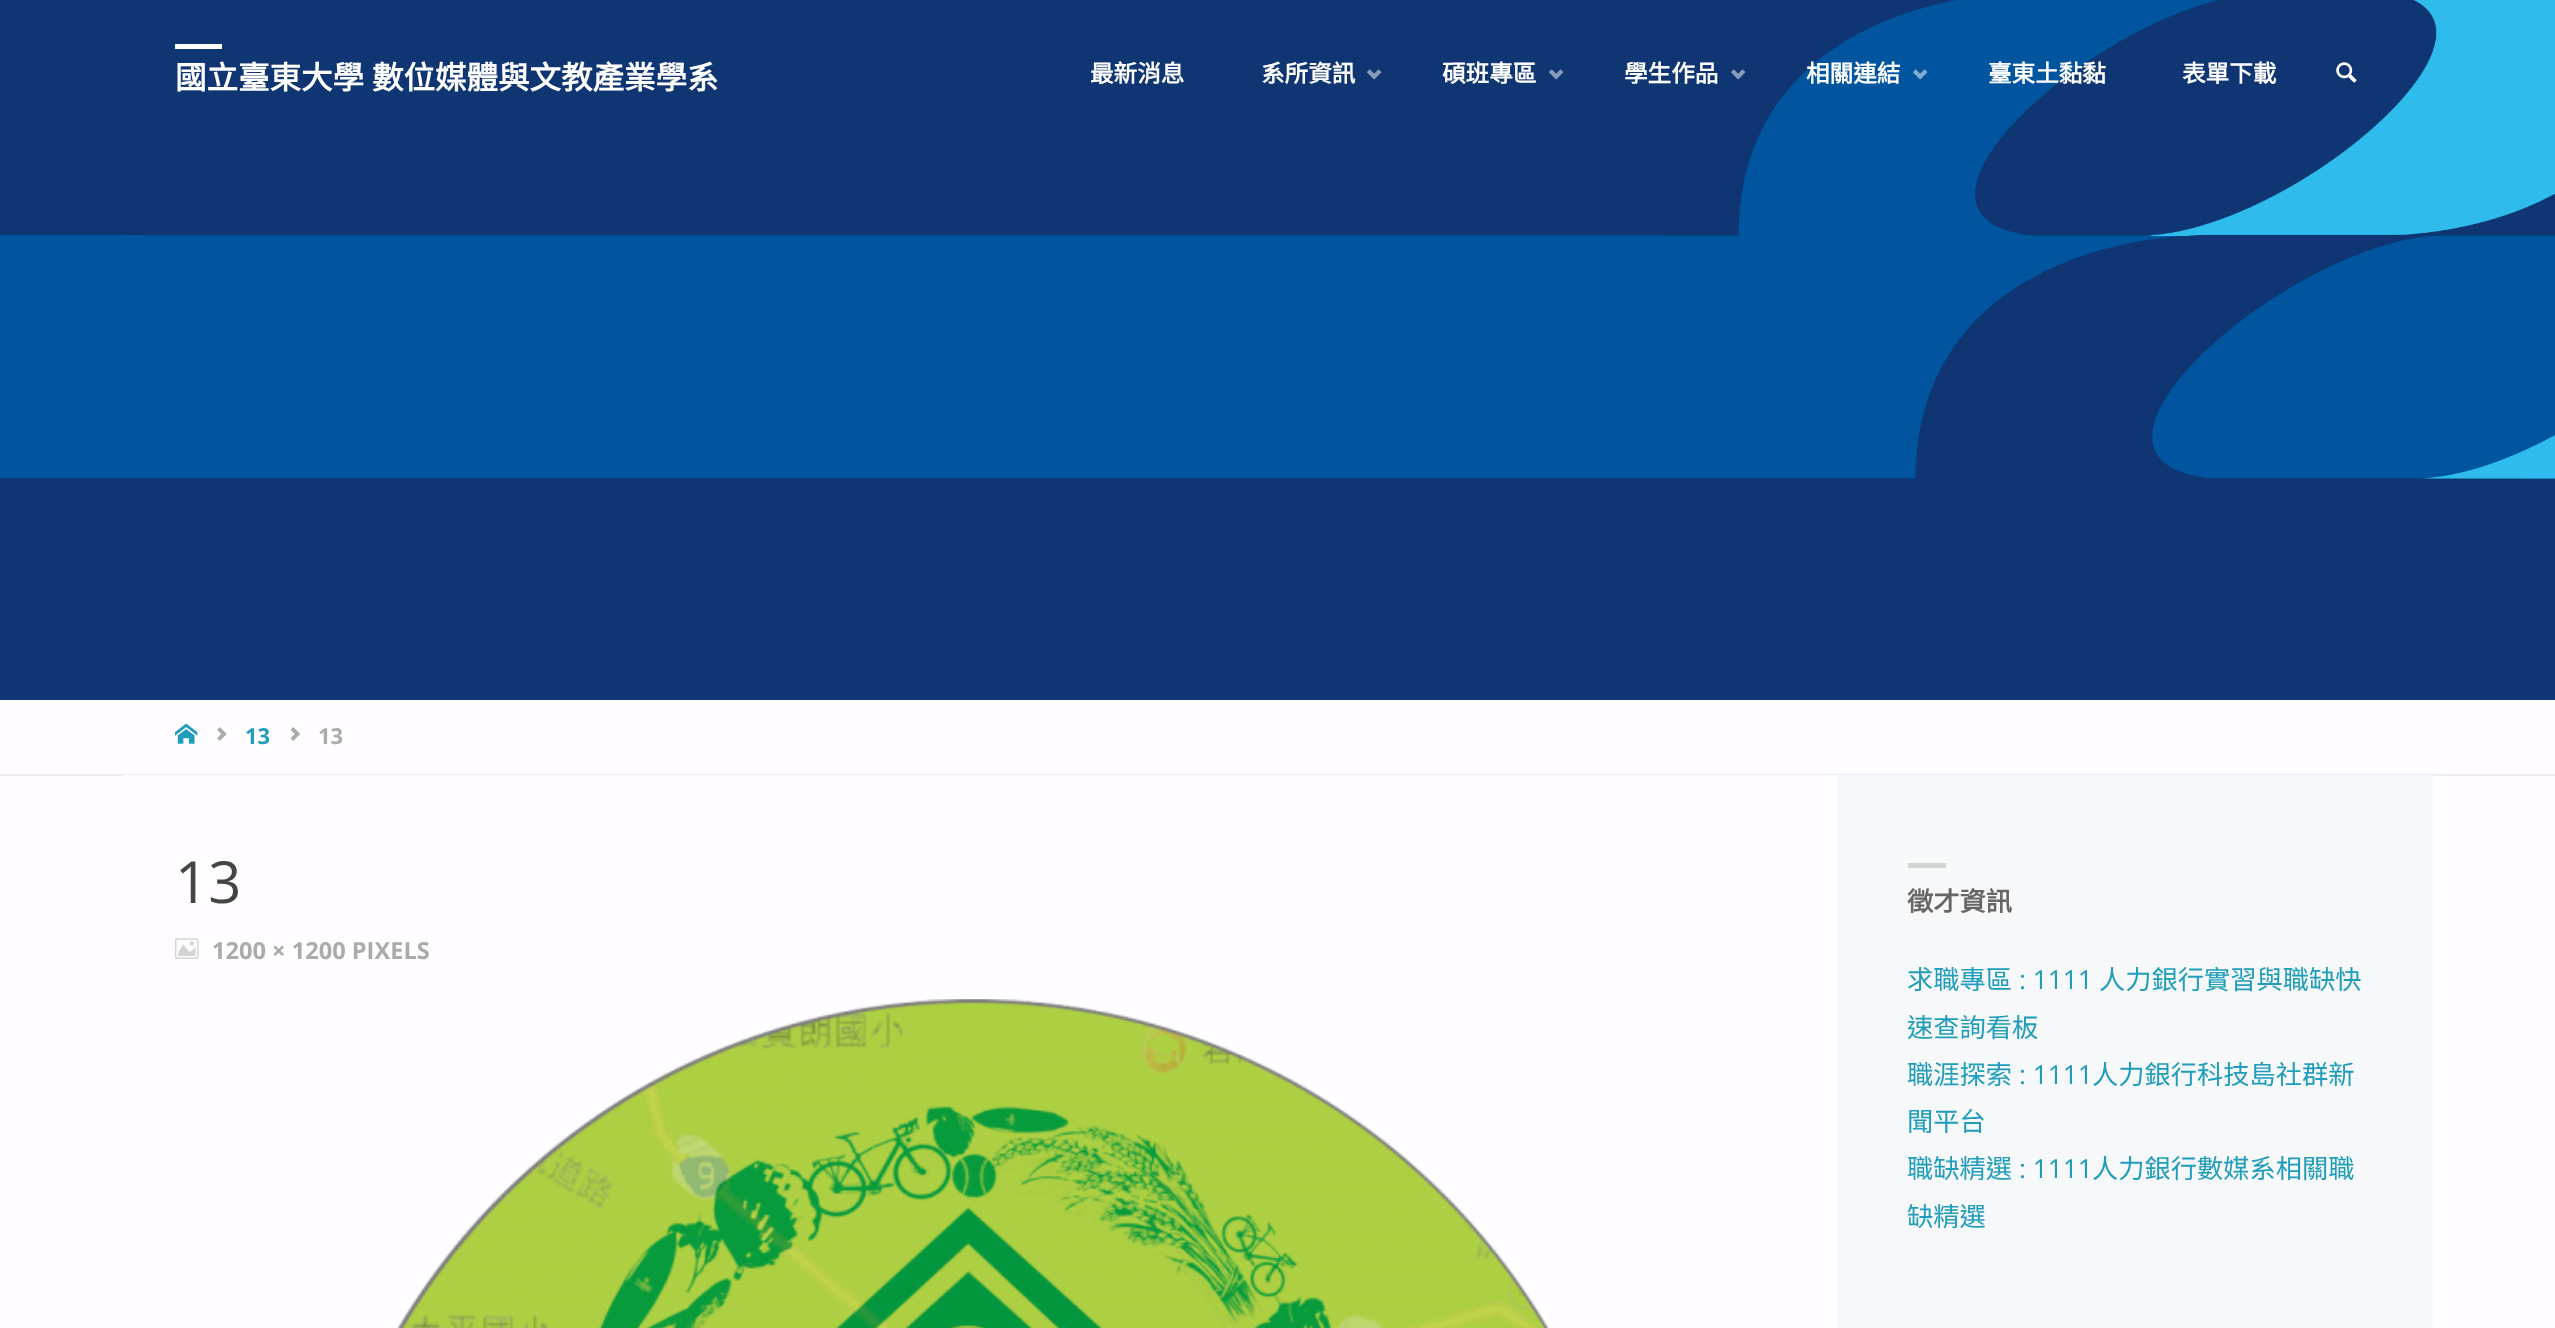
(async () => {
    const canvas = document.querySelector("canvas");
    canvas.width = 2555;
    canvas.height = 1328;
    const context = canvas.getContext("2d");
    context.miterLimit = 4;
    context.fontKerning = "normal";
    function write(s, x, y, font, color) {
        context.font = font;
        context.fillStyle = color;
        context.fillText(s, x, y);
    }
    function block(x, y, w, h, color) {
        context.fillStyle = color;
        context.fillRect(x, y, w, h);
    }
    async function photo(src, x, y, w, h) {
        const img = new Image();
        img.src = src;
        await img.decode();
        context.drawImage(img, x, y, w, h);
    }

    block(0, 0, 2555, 1328, "rgb(255, 253, 255)");
    await photo("media/1.png", 0, 0, 2555, 700);
    block(175, 44, 47, 5, "rgb(255, 255, 255)");
    context.wordSpacing = "1px";
    write("國立臺東大學 數位媒體與文教產業學系", 175, 89, "bold 31.5px Noto Sans CJK TC", "rgb(255, 255, 255)");
    context.wordSpacing = "0px";
    write("最新消息", 1090, 82, "bold 23.6px Noto Sans CJK TC", "rgb(255, 255, 255)");
    write("系所資訊", 1261, 82, "bold 23.6px Noto Sans CJK TC", "rgb(255, 255, 255)");
    await photo("media/2.png", 1366, 69, 16, 11);
    write("碩班專區", 1442, 82, "bold 23.6px Noto Sans CJK TC", "rgb(255, 255, 255)");
    await photo("media/2.png", 1548, 69, 16, 11);
    write("學生作品", 1624, 82, "bold 23.6px Noto Sans CJK TC", "rgb(255, 255, 255)");
    await photo("media/2.png", 1730, 69, 16, 11);
    write("相關連結", 1806, 82, "bold 23.6px Noto Sans CJK TC", "rgb(255, 255, 255)");
    await photo("media/3.png", 1912, 69, 16, 11);
    write("臺東土黏黏", 1988, 82, "bold 23.6px Noto Sans CJK TC", "rgb(255, 255, 255)");
    write("表單下載", 2182, 82, "bold 23.6px Noto Sans CJK TC", "rgb(255, 255, 255)");
    await photo("media/4.png", 2336, 62, 21, 21);
    block(0, 774, 2555, 2, "rgb(238, 236, 238)");
    await photo("media/5.png", 175, 723, 23, 21);
    await photo("media/6.png", 217, 727, 10, 14);
    write("13", 245, 744, "bold 22px Open Sans", "rgb(31, 157, 186)");
    await photo("media/7.png", 290, 727, 10, 14);
    write("13", 318, 744, "bold 22px Open Sans", "rgb(171, 171, 171)");
    block(123, 775, 1715, 1, "rgb(255, 253, 255)");
    write("13", 175, 903, "58px Open Sans", "rgb(68, 68, 68)");
    await photo("media/8.png", 175, 938, 24, 21);
    write("1200 × 1200 PIXELS", 212, 959, "bold 23.6px Open Sans", "rgb(171, 171, 171)");
    await photo("media/9.png", 396, 999, 1154, 329);
    block(1838, 775, 595, 553, "rgb(247, 248, 249)");
    block(1908, 863, 38, 5, "rgb(211, 212, 212)");
    write("徵才資訊", 1907, 911, "bold 26.25px Noto Sans CJK TC", "rgb(102, 102, 102)");
    write("求職專區", 1907, 989, "26.25px Noto Sans CJK TC", "rgb(31, 157, 186)");
    write(": 1111", 2019, 989, "26.25px Open Sans", "rgb(31, 157, 186)");
    write("人力銀行實習與職缺快", 2099, 989, "26.25px Noto Sans CJK TC", "rgb(31, 157, 186)");
    write("速查詢看板", 1907, 1037, "26.25px Noto Sans CJK TC", "rgb(31, 157, 186)");
    write("職涯探索", 1907, 1084, "26.25px Noto Sans CJK TC", "rgb(31, 157, 186)");
    write(": 1111", 2019, 1084, "26.25px Open Sans", "rgb(31, 157, 186)");
    write("人力銀行科技島社群新", 2092, 1084, "26.25px Noto Sans CJK TC", "rgb(31, 157, 186)");
    write("聞平台", 1907, 1131, "26.25px Noto Sans CJK TC", "rgb(31, 157, 186)");
    write("職缺精選", 1907, 1178, "26.25px Noto Sans CJK TC", "rgb(31, 157, 186)");
    write(": 1111", 2019, 1178, "26.25px Open Sans", "rgb(31, 157, 186)");
    write("人力銀行數媒系相關職", 2092, 1178, "26.25px Noto Sans CJK TC", "rgb(31, 157, 186)");
    write("缺精選", 1907, 1226, "26.25px Noto Sans CJK TC", "rgb(31, 157, 186)");
})();
